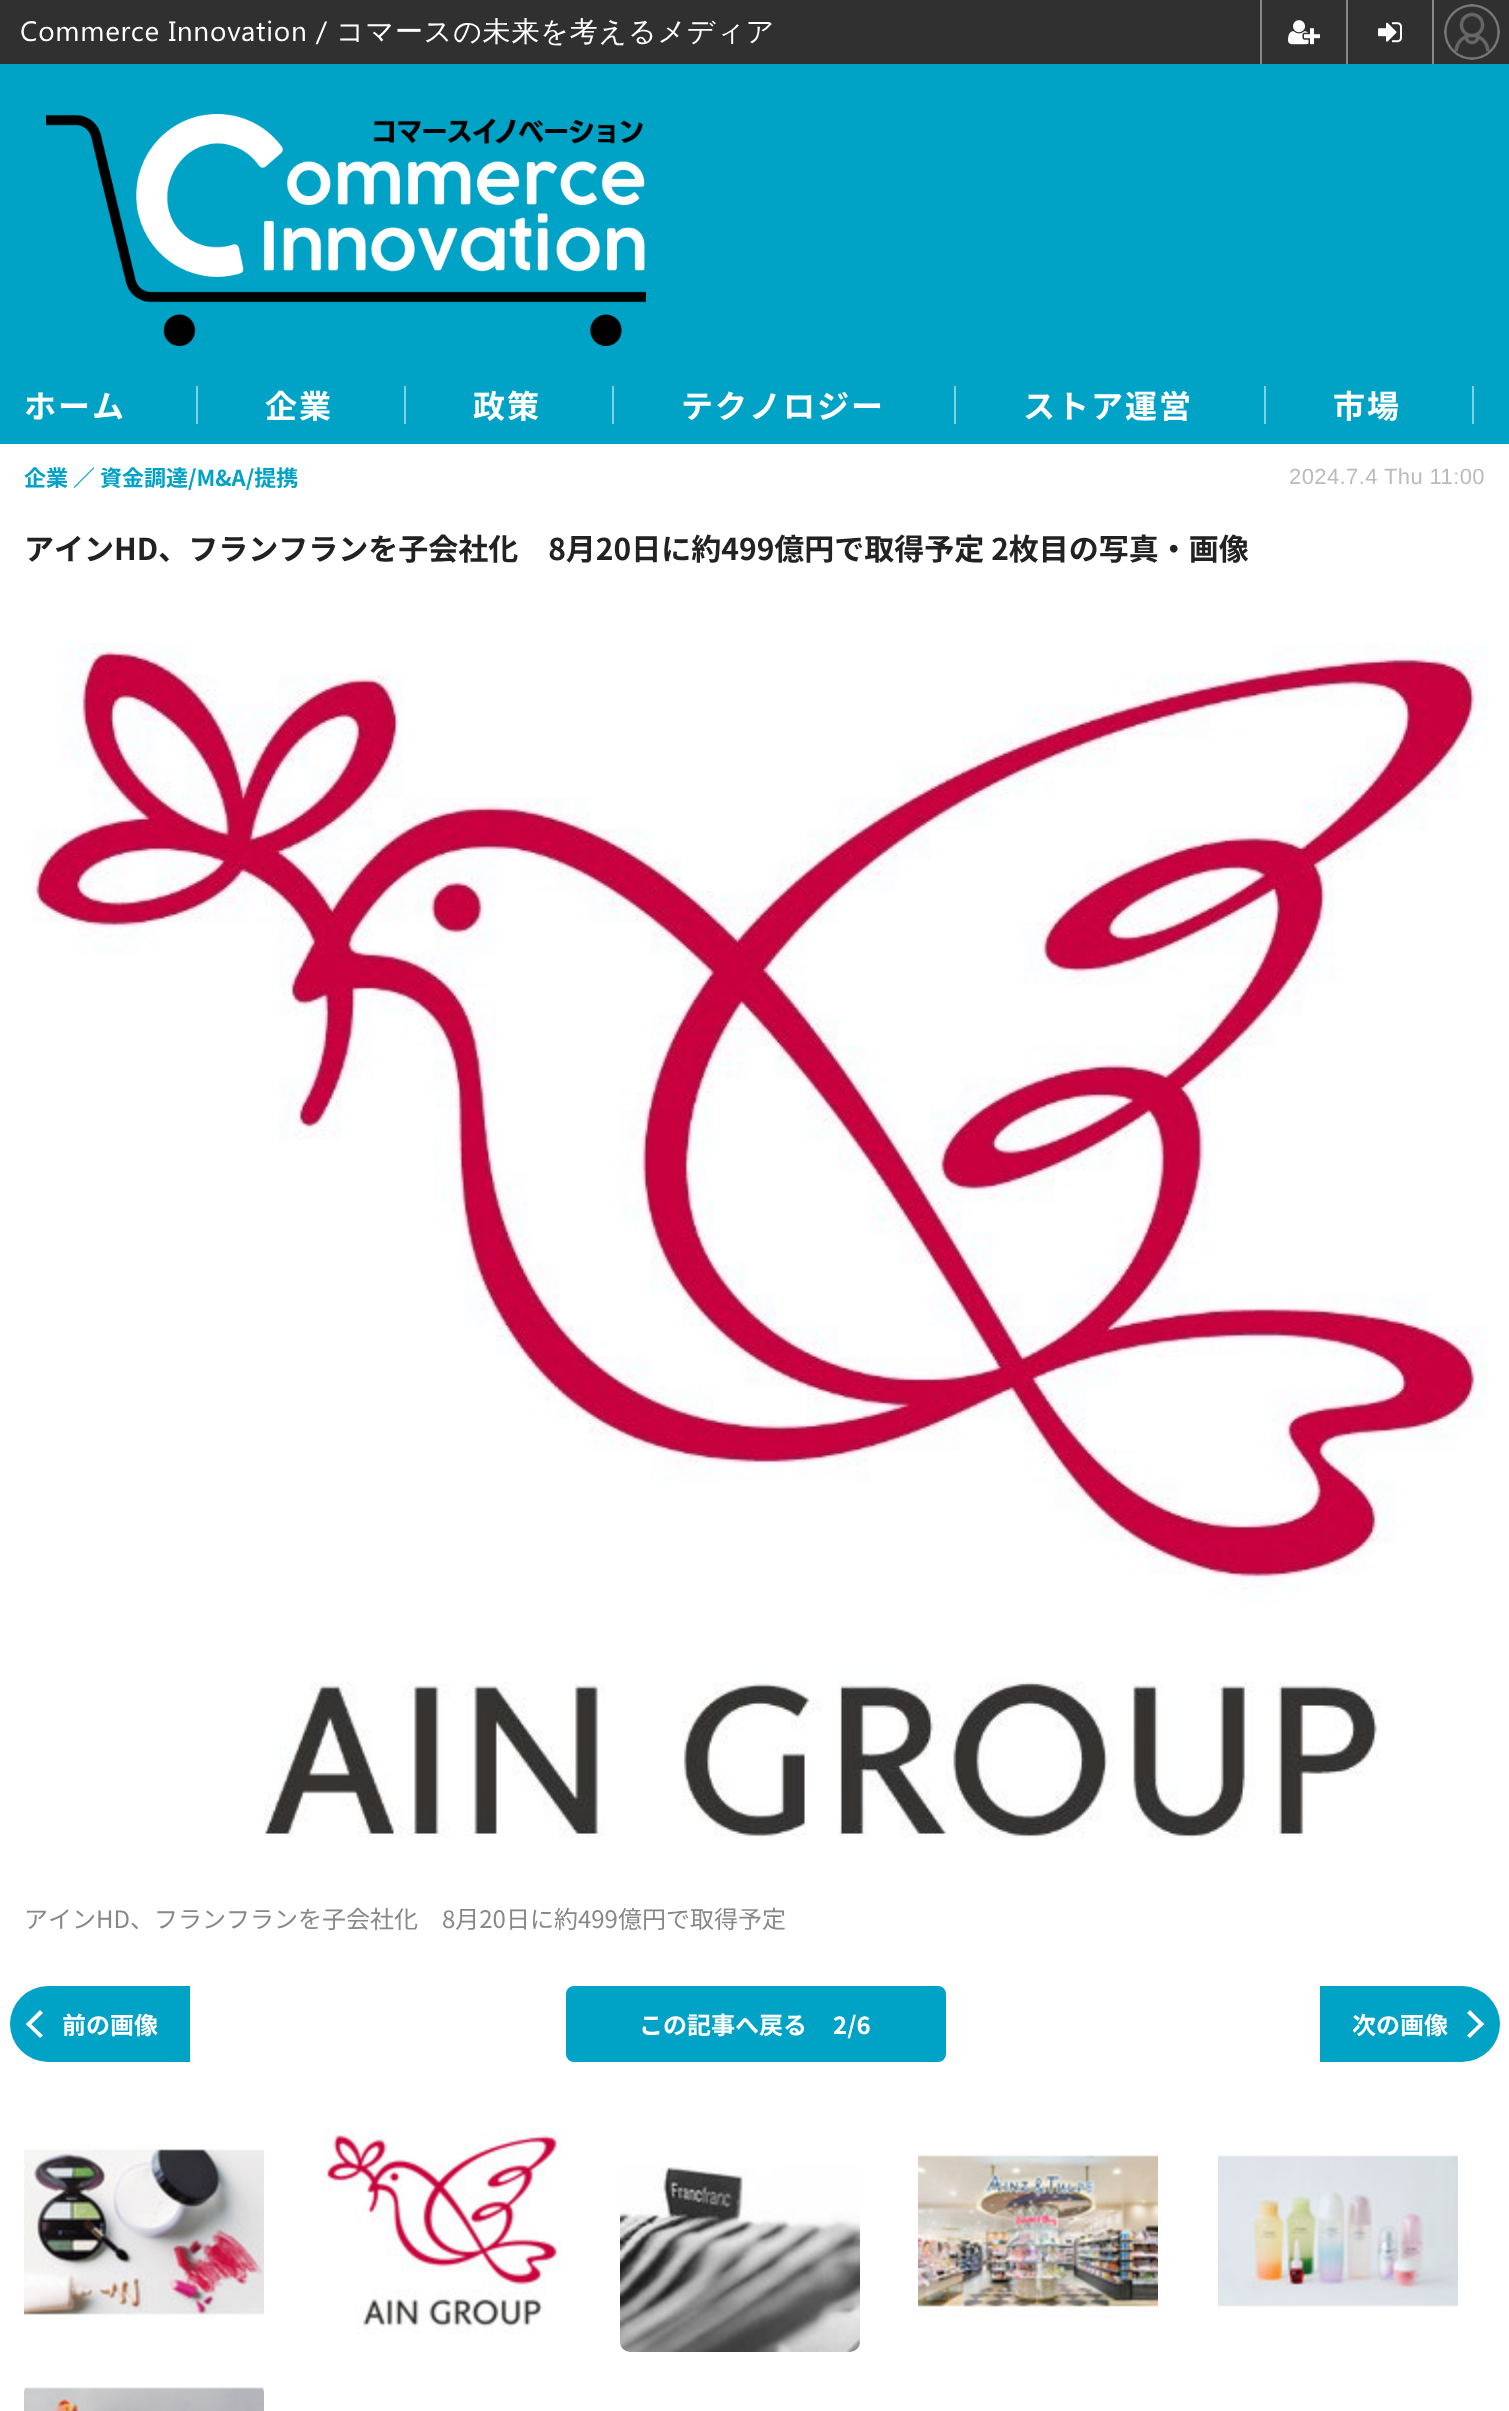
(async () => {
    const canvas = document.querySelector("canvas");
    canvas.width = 1509;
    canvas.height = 2411;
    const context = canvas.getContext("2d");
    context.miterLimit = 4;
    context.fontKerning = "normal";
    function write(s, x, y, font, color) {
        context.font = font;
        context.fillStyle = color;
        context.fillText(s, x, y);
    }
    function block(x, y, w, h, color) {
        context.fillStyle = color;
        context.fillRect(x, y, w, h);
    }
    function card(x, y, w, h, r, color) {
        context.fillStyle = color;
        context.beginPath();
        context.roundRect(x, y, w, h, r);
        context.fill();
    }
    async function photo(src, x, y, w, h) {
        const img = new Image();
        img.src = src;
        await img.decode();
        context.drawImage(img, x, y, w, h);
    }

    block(0, 0, 1509, 2411, "rgb(255, 255, 255)");
    block(0, 0, 1509, 64, "rgb(48, 48, 48)");
    context.letterSpacing = "0.8px";
    write("Commerce Innovation /", 20, 41, "28px Segoe UI", "rgb(255, 255, 255)");
    write("コマースの未来を考えるメディア", 336, 41, "500 28px WenQuanYi Zen Hei", "rgb(255, 255, 255)");
    block(1260, 0, 2, 64, "rgb(136, 136, 136)");
    await photo("media/1.png", 1288, 20, 32, 25);
    block(1432, 0, 2, 64, "rgb(136, 136, 136)");
    block(1346, 0, 2, 64, "rgb(136, 136, 136)");
    await photo("media/2.png", 1378, 22, 24, 21);
    await photo("media/3.png", 1444, 4, 56, 56);
    block(0, 64, 1509, 380, "rgb(0, 162, 197)");
    await photo("media/4.png", 46, 114, 600, 232);
    context.letterSpacing = "2px";
    write("ホーム", 24, 418, "bold 32px Noto Sans JP", "rgb(255, 255, 255)");
    block(196, 386, 2, 38, "rgb(128, 209, 226)");
    write("企業", 265, 418, "bold 32px Noto Sans JP", "rgb(255, 255, 255)");
    block(404, 386, 2, 38, "rgb(128, 209, 226)");
    write("政策", 473, 418, "bold 32px Noto Sans JP", "rgb(255, 255, 255)");
    block(612, 386, 2, 38, "rgb(128, 209, 226)");
    write("テクノロジー", 681, 418, "bold 32px Noto Sans JP", "rgb(255, 255, 255)");
    block(954, 386, 2, 38, "rgb(128, 209, 226)");
    write("ストア運営", 1023, 418, "bold 32px Noto Sans JP", "rgb(255, 255, 255)");
    block(1264, 386, 2, 38, "rgb(128, 209, 226)");
    write("市場", 1333, 418, "bold 32px Noto Sans JP", "rgb(255, 255, 255)");
    block(1472, 386, 2, 38, "rgb(128, 209, 226)");
    context.letterSpacing = "0px";
    write("企業 ／ 資金調達/M&A/提携", 24, 486, "bold 22px Noto Sans JP", "rgb(0, 162, 197)");
    context.letterSpacing = "0.4px";
    write("2024.7.4 Thu 11:00", 1289, 484, "22px Liberation Sans", "rgb(187, 187, 187)");
    context.letterSpacing = "0px";
    write("アインHD、フランフランを子会社化　8月20日に約499億円で取得予定 2枚目の写真・画像", 24, 560, "bold 30px Noto Sans JP", "rgb(34, 34, 34)");
    await photo("media/5.png", 31, 643, 1457, 1195);
    write("アインHD、フランフランを子会社化　8月20日に約499億円で取得予定", 24, 1928, "24px Noto Sans JP", "rgb(136, 136, 136)");
    context.fillStyle = "rgb(0, 162, 197)";
    context.beginPath();
    context.roundRect(10, 1986, 180, 76, [38, 0, 0, 38]);
    context.fill();
    context.fillStyle = "rgb(255, 255, 255)";
    context.beginPath();
    context.moveTo(40, 2038);
    context.lineTo(26, 2024);
    context.lineTo(28.5, 2021.5);
    context.lineTo(43, 2035.5);
    context.closePath();
    context.fill();
    context.beginPath();
    context.moveTo(28.5, 2027);
    context.lineTo(26, 2024);
    context.lineTo(40, 2010);
    context.lineTo(43, 2013);
    context.closePath();
    context.fill();
    write("前の画像", 62, 2034, "bold 24px Noto Sans JP", "rgb(255, 255, 255)");
    card(566, 1986, 380, 76, 8, "rgb(0, 162, 197)");
    write("この記事へ戻る", 639, 2034, "bold 24px Noto Sans JP", "rgb(255, 255, 255)");
    write("2/6", 833, 2034, "bold 24px Noto Sans JP", "rgb(255, 255, 255)");
    context.fillStyle = "rgb(0, 162, 197)";
    context.beginPath();
    context.roundRect(1320, 1986, 180, 76, [0, 38, 38, 0]);
    context.fill();
    write("次の画像", 1352, 2034, "bold 24px Noto Sans JP", "rgb(255, 255, 255)");
    context.beginPath();
    context.moveTo(1470, 2010);
    context.lineTo(1484, 2024);
    context.lineTo(1481.5, 2027);
    context.lineTo(1467, 2013);
    context.closePath();
    context.fill();
    context.beginPath();
    context.moveTo(1481.5, 2021.5);
    context.lineTo(1484, 2024);
    context.lineTo(1470, 2038);
    context.lineTo(1467, 2035.5);
    context.closePath();
    context.fill();
    await photo("media/6.png", 24, 2144, 240, 176);
    await photo("media/7.png", 322, 2128, 240, 206);
    await photo("media/8.png", 620, 2166, 240, 186);
    await photo("media/9.png", 918, 2154, 240, 164);
    await photo("media/10.png", 1218, 2155, 240, 152);
    await photo("media/11.png", 24, 2387, 240, 24);
})();
